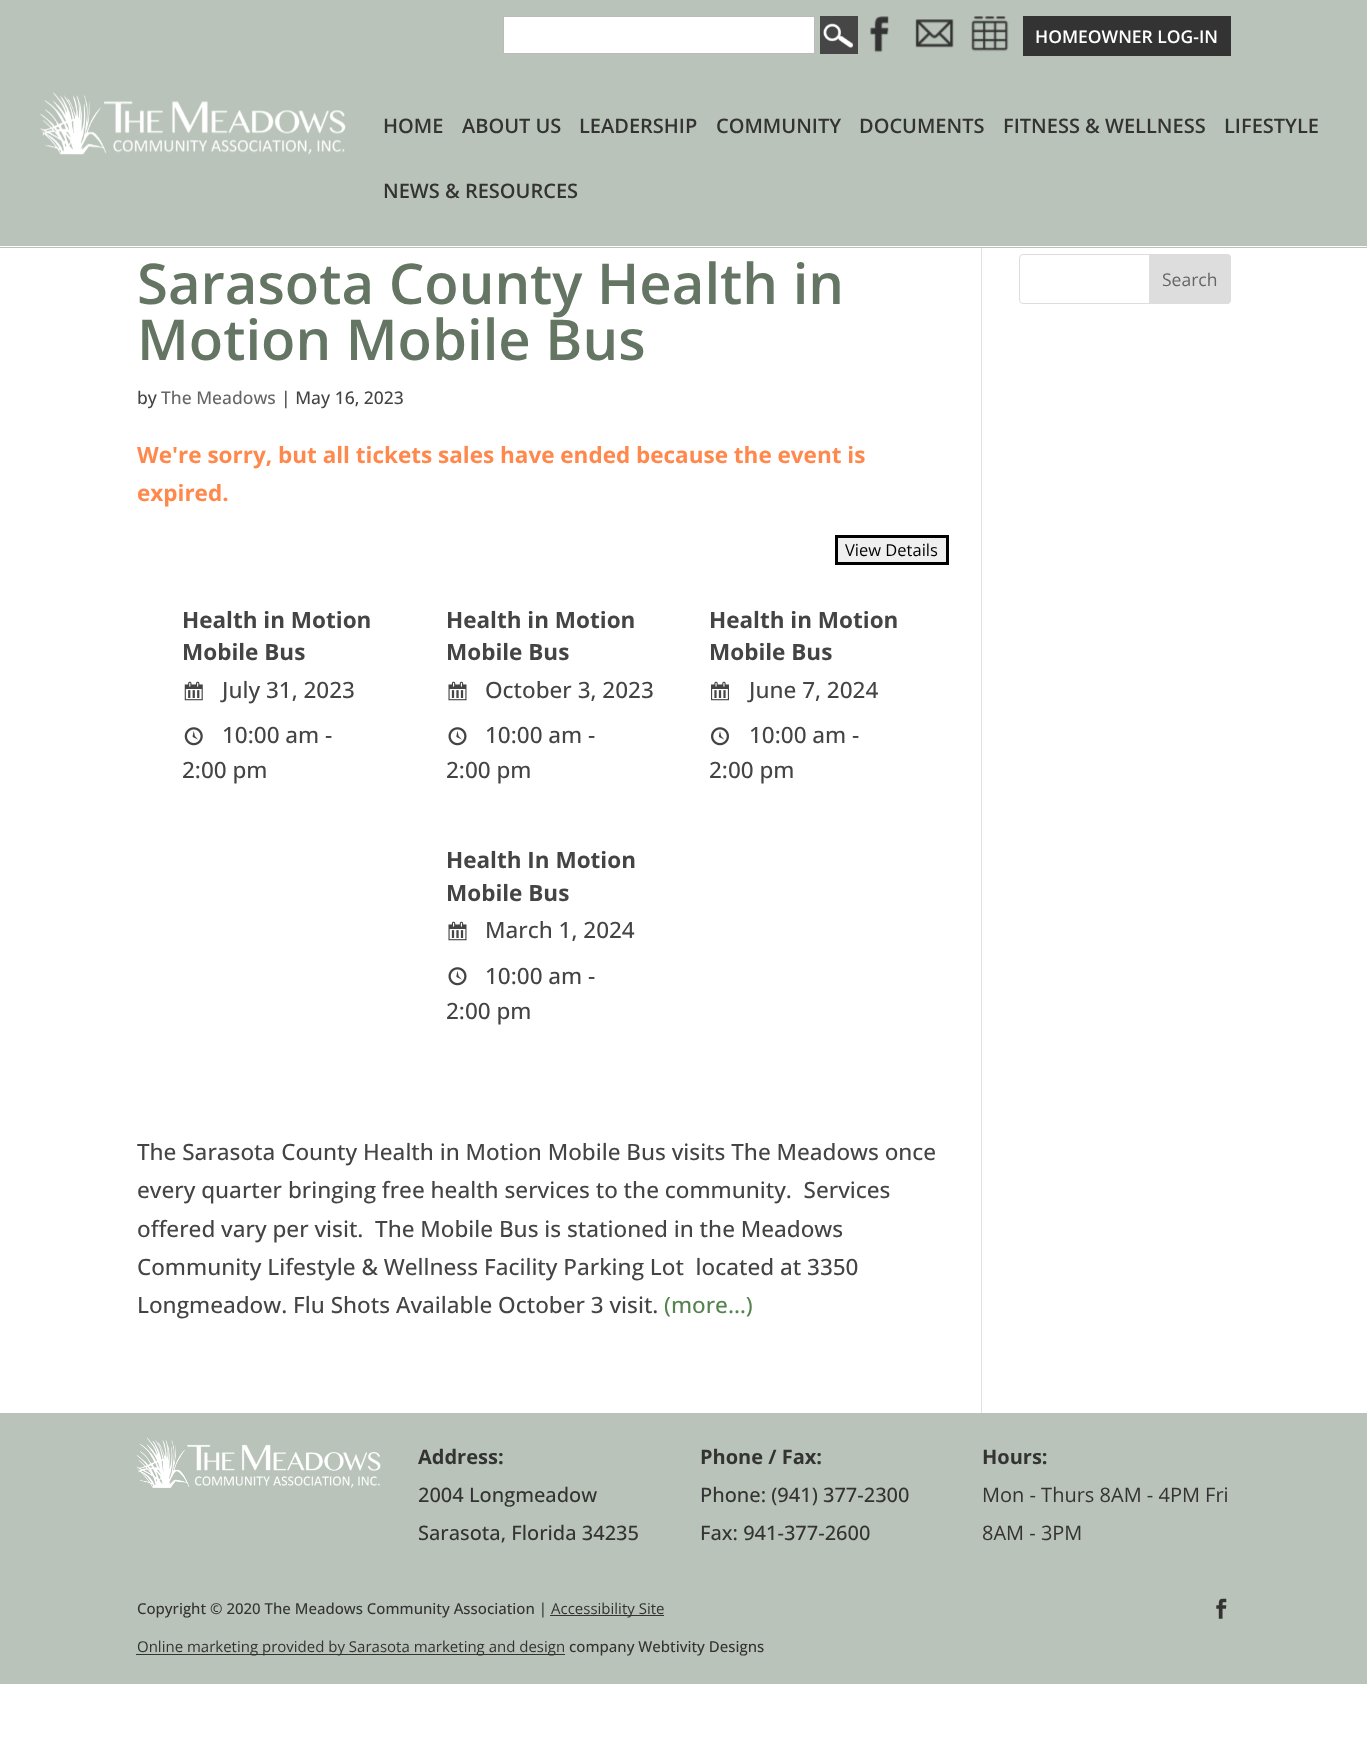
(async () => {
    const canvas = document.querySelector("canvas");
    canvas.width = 1367;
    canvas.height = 1751;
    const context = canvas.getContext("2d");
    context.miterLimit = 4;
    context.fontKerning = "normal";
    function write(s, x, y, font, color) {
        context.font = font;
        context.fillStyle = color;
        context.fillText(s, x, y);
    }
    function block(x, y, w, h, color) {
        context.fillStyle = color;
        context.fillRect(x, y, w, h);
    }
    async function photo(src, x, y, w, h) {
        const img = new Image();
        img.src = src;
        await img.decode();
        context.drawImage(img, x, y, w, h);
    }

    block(0, 0, 1367, 1751, "rgb(255, 255, 255)");
    block(0, 0, 1367, 248, "rgb(185, 195, 185)");
    context.fillStyle = "rgb(255, 255, 255)";
    context.beginPath();
    context.rect(503.5, 16.5, 311, 37);
    context.fill();
    context.strokeStyle = "rgb(187, 187, 187)";
    context.stroke();
    block(820, 16, 38, 38, "rgb(70, 70, 70)");
    await photo("media/1.png", 823, 23, 31, 25);
    await photo("media/2.png", 870, 16, 19, 37);
    await photo("media/3.png", 915, 19, 39, 29);
    await photo("media/4.png", 971, 16, 38, 36);
    block(1023, 16, 208, 40, "rgb(51, 51, 51)");
    write("HOMEOWNER LOG-IN", 1035, 43, "600 17.5px Open Sans", "rgb(255, 255, 255)");
    block(0, 246, 1367, 1, "rgb(255, 255, 255)");
    await photo("media/5.png", 40, 92, 306, 63);
    write("HOME", 383, 133, "600 20px Open Sans", "rgb(51, 51, 51)");
    write("ABOUT US", 462, 133, "600 20px Open Sans", "rgb(51, 51, 51)");
    write("LEADERSHIP", 579, 133, "600 20px Open Sans", "rgb(51, 51, 51)");
    write("COMMUNITY", 716, 133, "600 20px Open Sans", "rgb(51, 51, 51)");
    write("DOCUMENTS", 859, 133, "600 20px Open Sans", "rgb(51, 51, 51)");
    write("FITNESS & WELLNESS", 1003, 133, "600 20px Open Sans", "rgb(51, 51, 51)");
    write("LIFESTYLE", 1224, 133, "600 20px Open Sans", "rgb(51, 51, 51)");
    write("NEWS & RESOURCES", 383, 198, "600 20px Open Sans", "rgb(51, 51, 51)");
    block(981, 248, 1, 1165, "rgb(226, 226, 226)");
    write("Sarasota County Health in", 137, 304, "600 56.25px Open Sans", "rgb(100, 117, 100)");
    write("Motion Mobile Bus", 137, 360, "600 56.25px Open Sans", "rgb(100, 117, 100)");
    write("by", 137, 404, "500 17.5px Open Sans", "rgb(68, 68, 68)");
    write("The Meadows", 161, 404, "500 17.5px Open Sans", "rgb(102, 102, 102)");
    write("| May 16, 2023", 281, 404, "500 17.5px Open Sans", "rgb(68, 68, 68)");
    write("We're sorry, but all tickets sales have ended because the event is", 137, 463, "bold 22.5px Open Sans", "rgb(255, 136, 77)");
    write("expired.", 137, 501, "bold 22.5px Open Sans", "rgb(255, 136, 77)");
    context.fillStyle = "rgb(239, 239, 239)";
    context.beginPath();
    context.rect(836.5, 536.5, 111, 27);
    context.fill();
    context.strokeStyle = "rgb(0, 0, 0)";
    context.lineWidth = 3;
    context.stroke();
    write("View Details", 845, 556, "16.5px Open Sans", "rgb(0, 0, 0)");
    write("Health in Motion", 182, 628, "bold 22.5px Open Sans", "rgb(68, 68, 68)");
    write("Mobile Bus", 182, 660, "bold 22.5px Open Sans", "rgb(68, 68, 68)");
    await photo("media/6.png", 184, 681, 19, 20);
    write("July 31, 2023", 222, 698, "500 22.5px Open Sans", "rgb(68, 68, 68)");
    await photo("media/7.png", 184, 727, 19, 19);
    write("10:00 am -", 222, 743, "500 22.5px Open Sans", "rgb(68, 68, 68)");
    write("2:00 pm", 182, 778, "500 22.5px Open Sans", "rgb(68, 68, 68)");
    write("Health in Motion", 446, 628, "bold 22.5px Open Sans", "rgb(68, 68, 68)");
    write("Mobile Bus", 446, 660, "bold 22.5px Open Sans", "rgb(68, 68, 68)");
    await photo("media/8.png", 448, 681, 19, 20);
    write("October 3, 2023", 485, 698, "500 22.5px Open Sans", "rgb(68, 68, 68)");
    await photo("media/9.png", 448, 727, 19, 19);
    write("10:00 am -", 485, 743, "500 22.5px Open Sans", "rgb(68, 68, 68)");
    write("2:00 pm", 446, 778, "500 22.5px Open Sans", "rgb(68, 68, 68)");
    write("Health in Motion", 709, 628, "bold 22.5px Open Sans", "rgb(68, 68, 68)");
    write("Mobile Bus", 709, 660, "bold 22.5px Open Sans", "rgb(68, 68, 68)");
    await photo("media/10.png", 711, 681, 18, 20);
    write("June 7, 2024", 749, 698, "500 22.5px Open Sans", "rgb(68, 68, 68)");
    await photo("media/11.png", 711, 727, 18, 19);
    write("10:00 am -", 749, 743, "500 22.5px Open Sans", "rgb(68, 68, 68)");
    write("2:00 pm", 709, 778, "500 22.5px Open Sans", "rgb(68, 68, 68)");
    write("Health In Motion", 446, 868, "bold 22.5px Open Sans", "rgb(68, 68, 68)");
    write("Mobile Bus", 446, 901, "bold 22.5px Open Sans", "rgb(68, 68, 68)");
    await photo("media/8.png", 448, 921, 19, 20);
    write("March 1, 2024", 485, 938, "500 22.5px Open Sans", "rgb(68, 68, 68)");
    await photo("media/9.png", 448, 967, 19, 19);
    write("10:00 am -", 485, 984, "500 22.5px Open Sans", "rgb(68, 68, 68)");
    write("2:00 pm", 446, 1019, "500 22.5px Open Sans", "rgb(68, 68, 68)");
    write("The Sarasota County Health in Motion Mobile Bus visits The Meadows once", 137, 1160, "500 22.5px Open Sans", "rgb(68, 68, 68)");
    write("every quarter bringing free health services to the community.  Services", 137, 1198, "500 22.5px Open Sans", "rgb(68, 68, 68)");
    write("offered vary per visit.  The Mobile Bus is stationed in the Meadows", 137, 1237, "500 22.5px Open Sans", "rgb(68, 68, 68)");
    write("Community Lifestyle & Wellness Facility Parking Lot  located at 3350", 137, 1275, "500 22.5px Open Sans", "rgb(68, 68, 68)");
    write("Longmeadow. Flu Shots Available October 3 visit.", 137, 1313, "500 22.5px Open Sans", "rgb(68, 68, 68)");
    write("(more…)", 664, 1313, "500 22.5px Open Sans", "rgb(85, 132, 79)");
    context.beginPath();
    context.roundRect(1019.5, 254.5, 211, 49, 3.5);
    context.strokeStyle = "rgb(221, 221, 221)";
    context.lineWidth = 1;
    context.stroke();
    context.fillStyle = "rgb(221, 221, 221)";
    context.beginPath();
    context.roundRect(1149.5, 254.5, 81, 49, [0, 3.5, 3.5, 0]);
    context.fill();
    context.stroke();
    write("Search", 1162, 286, "17.5px Open Sans", "rgb(102, 102, 102)");
    block(0, 1413, 1367, 271, "rgb(185, 195, 185)");
    await photo("media/12.png", 136, 1437, 245, 51);
    write("Address:", 418, 1464, "bold 20px Open Sans", "rgb(51, 51, 51)");
    write("2004 Longmeadow", 418, 1502, "500 20px Open Sans", "rgb(51, 51, 51)");
    write("Sarasota, Florida 34235", 418, 1540, "500 20px Open Sans", "rgb(51, 51, 51)");
    write("Phone / Fax:", 700, 1464, "bold 20px Open Sans", "rgb(51, 51, 51)");
    write("Phone: (941) 377-2300", 700, 1502, "500 20px Open Sans", "rgb(51, 51, 51)");
    write("Fax: 941-377-2600", 700, 1540, "500 20px Open Sans", "rgb(51, 51, 51)");
    write("Hours:", 982, 1464, "bold 20px Open Sans", "rgb(51, 51, 51)");
    write("Mon - Thurs 8AM - 4PM Fri", 982, 1502, "20px Open Sans", "rgb(51, 51, 51)");
    write("8AM - 3PM", 982, 1540, "20px Open Sans", "rgb(51, 51, 51)");
    write("Copyright © 2020 The Meadows Community Association |", 137, 1614, "500 15px Open Sans", "rgb(51, 51, 51)");
    block(550, 1615, 114, 1, "rgb(51, 51, 51)");
    write("Accessibility Site", 551, 1614, "15px Open Sans", "rgb(51, 51, 51)");
    block(136, 1654, 429, 1, "rgb(51, 51, 51)");
    write("Online marketing provided by Sarasota marketing and design", 137, 1652, "15px Open Sans", "rgb(51, 51, 51)");
    write("company Webtivity Designs", 569, 1652, "500 15px Open Sans", "rgb(51, 51, 51)");
    await photo("media/13.png", 1216, 1598, 11, 21);
})();
